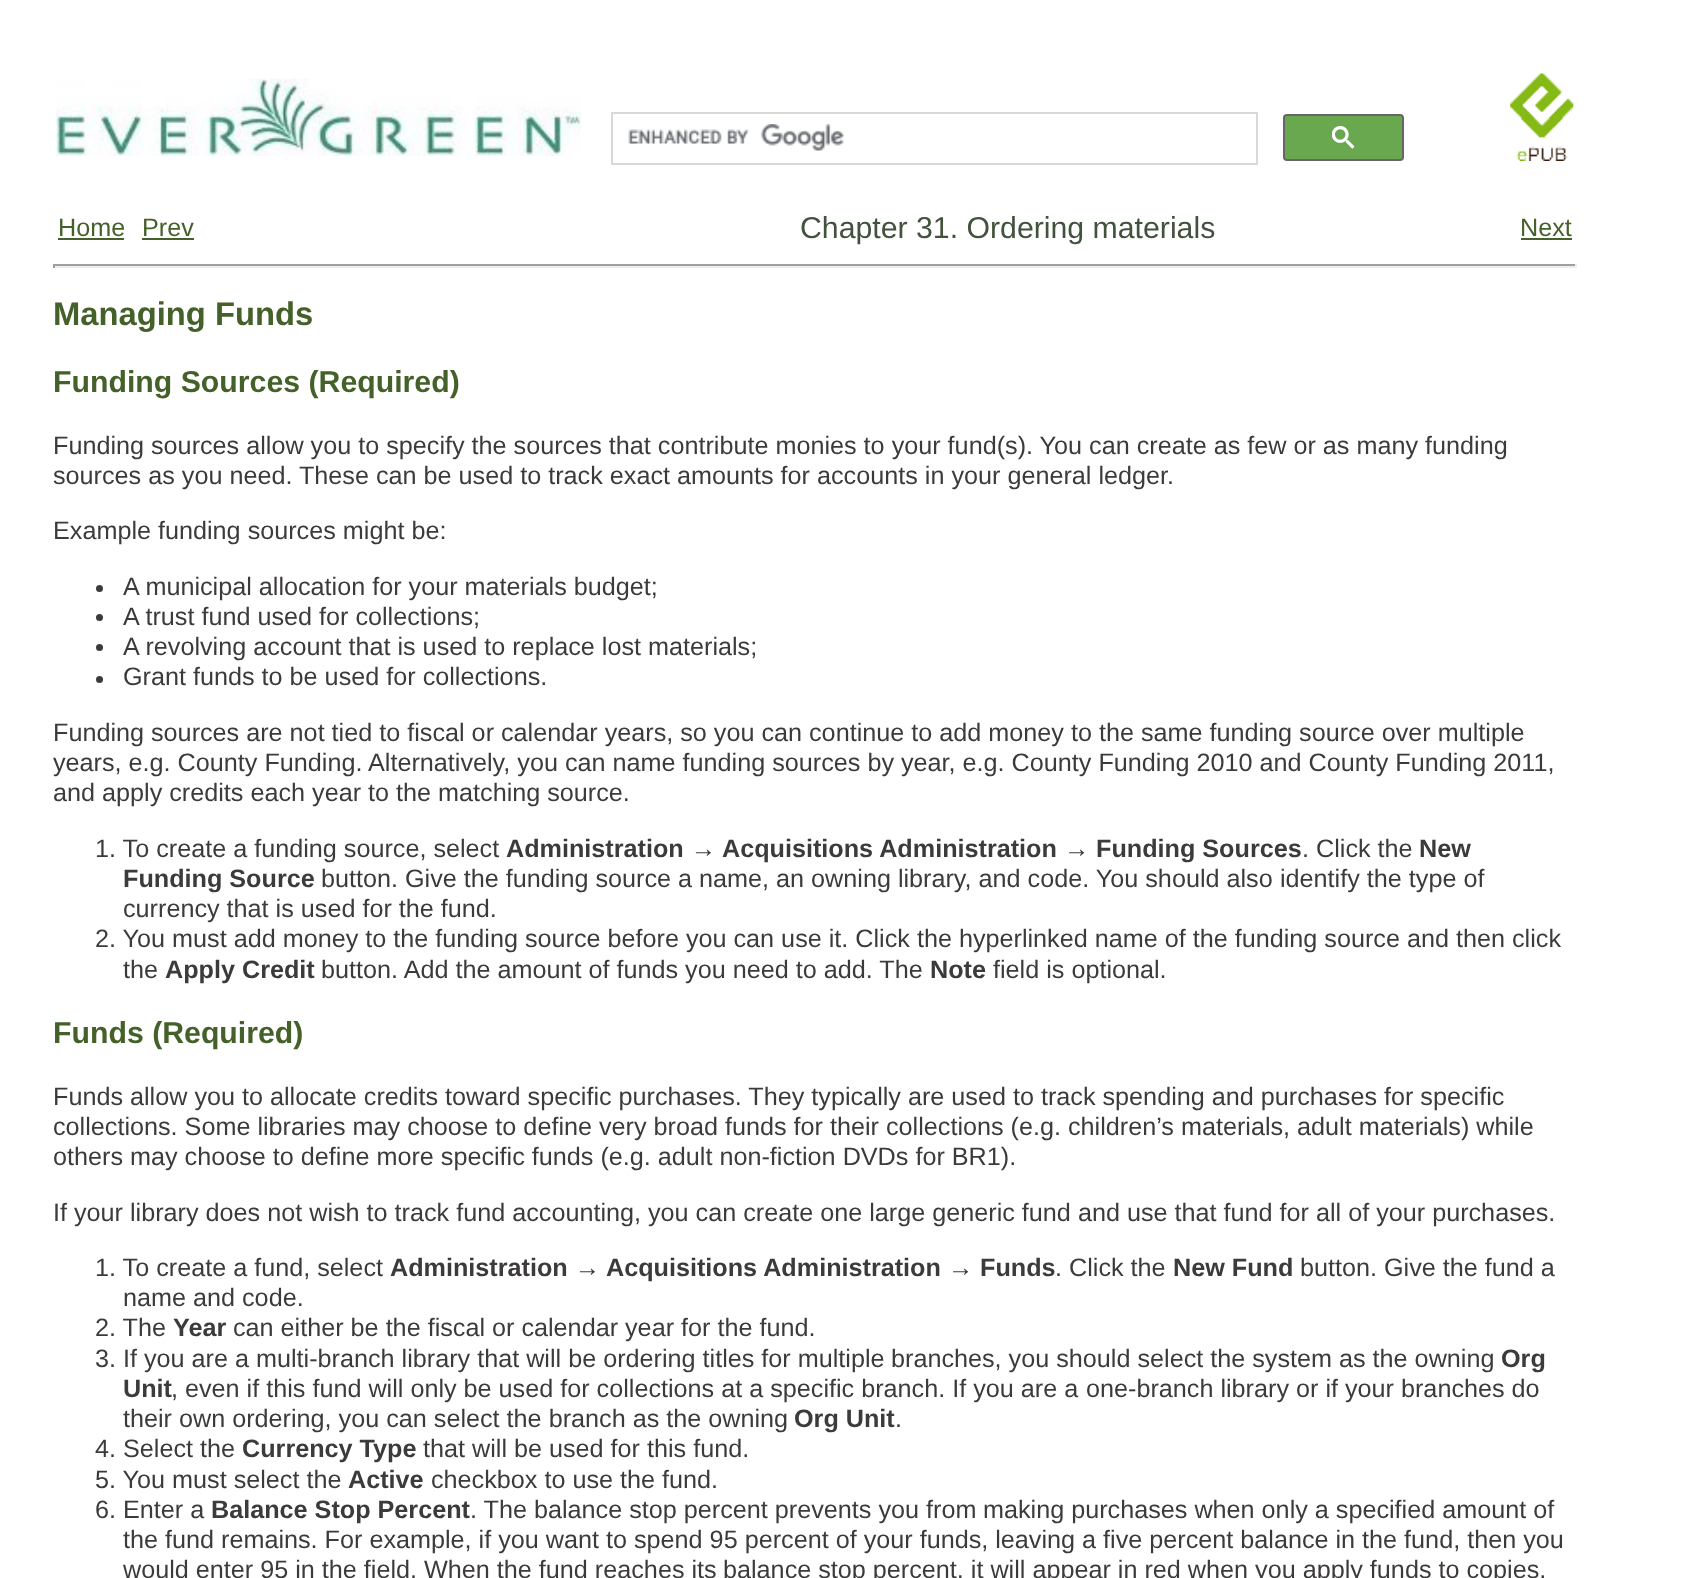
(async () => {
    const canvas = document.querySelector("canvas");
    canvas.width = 1694;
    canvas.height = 1578;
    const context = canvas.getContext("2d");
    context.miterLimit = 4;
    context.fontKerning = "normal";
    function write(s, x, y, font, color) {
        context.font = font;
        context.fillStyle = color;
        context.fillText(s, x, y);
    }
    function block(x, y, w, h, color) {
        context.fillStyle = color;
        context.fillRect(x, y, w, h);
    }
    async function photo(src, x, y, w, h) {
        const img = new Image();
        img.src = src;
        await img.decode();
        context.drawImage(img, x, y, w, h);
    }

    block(0, 0, 1694, 1578, "rgb(255, 255, 255)");
    await photo("media/1.png", 56, 78, 525, 78);
    context.strokeStyle = "rgb(217, 217, 217)";
    context.lineWidth = 2;
    context.strokeRect(612, 113, 645, 51);
    await photo("media/2.png", 628, 124, 216, 27);
    context.fillStyle = "rgb(106, 168, 79)";
    context.beginPath();
    context.roundRect(1284, 115, 119, 45, 3);
    context.fill();
    context.strokeStyle = "rgb(102, 102, 102)";
    context.stroke();
    await photo("media/3.png", 1332, 126, 23, 23);
    await photo("media/4.png", 1510, 73, 64, 88);
    write("Home", 58, 236, "25.2px Liberation Sans", "rgb(68, 97, 41)");
    block(58, 238, 66, 2, "rgb(68, 97, 41)");
    write("Prev", 142, 236, "25.2px Liberation Sans", "rgb(68, 97, 41)");
    block(142, 238, 52, 2, "rgb(68, 97, 41)");
    write("Chapter 31. Ordering materials", 800, 238, "30.25px Liberation Sans", "rgb(65, 82, 61)");
    write("Next", 1520, 236, "25.2px Liberation Sans", "rgb(68, 97, 41)");
    block(1521, 238, 51, 2, "rgb(68, 97, 41)");
    block(53, 264, 1524, 2, "rgb(159, 159, 159)");
    block(1575, 264, 2, 4, "rgb(238, 238, 238)");
    block(53, 266, 1524, 2, "rgb(238, 238, 238)");
    block(53, 264, 2, 4, "rgb(159, 159, 159)");
    write("Managing Funds", 53, 325, "bold 32.75px Liberation Sans", "rgb(68, 97, 41)");
    write("Funding Sources (Required)", 53, 392, "bold 30.25px Liberation Sans", "rgb(68, 97, 41)");
    write("Funding sources allow you to specify the sources that contribute monies to your fund(s). You can create as few or as many funding", 53, 454, "25.2px Liberation Sans", "rgb(61, 58, 58)");
    write("sources as you need. These can be used to track exact amounts for accounts in your general ledger.", 53, 484, "25.2px Liberation Sans", "rgb(61, 58, 58)");
    write("Example funding sources might be:", 53, 539, "25.2px Liberation Sans", "rgb(61, 58, 58)");
    context.beginPath();
    context.arc(99.5, 588.5, 3.5, 0, Math.PI * 2);
    context.fill();
    write("A municipal allocation for your materials budget;", 123, 595, "25.2px Liberation Sans", "rgb(61, 58, 58)");
    context.beginPath();
    context.arc(99.5, 617.5, 3.5, 0, Math.PI * 2);
    context.fill();
    write("A trust fund used for collections;", 123, 625, "25.2px Liberation Sans", "rgb(61, 58, 58)");
    context.beginPath();
    context.arc(99.5, 647.5, 3.5, 0, Math.PI * 2);
    context.fill();
    write("A revolving account that is used to replace lost materials;", 123, 655, "25.2px Liberation Sans", "rgb(61, 58, 58)");
    context.beginPath();
    context.arc(99.5, 679.5, 3.5, 0, Math.PI * 2);
    context.fill();
    write("Grant funds to be used for collections.", 123, 685, "25.2px Liberation Sans", "rgb(61, 58, 58)");
    write("Funding sources are not tied to fiscal or calendar years, so you can continue to add money to the same funding source over multiple", 53, 741, "25.2px Liberation Sans", "rgb(61, 58, 58)");
    write("years, e.g. County Funding. Alternatively, you can name funding sources by year, e.g. County Funding 2010 and County Funding 2011,", 53, 771, "25.2px Liberation Sans", "rgb(61, 58, 58)");
    write("and apply credits each year to the matching source.", 53, 801, "25.2px Liberation Sans", "rgb(61, 58, 58)");
    write("1. To create a funding source, select", 95, 857, "25.2px Liberation Sans", "rgb(61, 58, 58)");
    write("Administration → Acquisitions Administration →", 506, 857, "bold 25.2px Liberation Sans", "rgb(61, 58, 58)");
    write("Funding Sources", 1096, 857, "bold 25.2px Liberation Sans", "rgb(61, 58, 58)");
    write(". Click the", 1302, 857, "25.2px Liberation Sans", "rgb(61, 58, 58)");
    write("New", 1419, 857, "bold 25.2px Liberation Sans", "rgb(61, 58, 58)");
    write("Funding Source", 123, 887, "bold 25.2px Liberation Sans", "rgb(61, 58, 58)");
    write("button. Give the funding source a name, an owning library, and code. You should also", 321, 887, "25.2px Liberation Sans", "rgb(61, 58, 58)");
    write("identify the type of", 1280, 887, "25.2px Liberation Sans", "rgb(61, 58, 58)");
    write("currency that is used for the fund.", 123, 917, "25.2px Liberation Sans", "rgb(61, 58, 58)");
    write("2. You must add money to the funding source before you can use it. Click the hyperlinked name of the funding source and then click", 95, 947, "25.2px Liberation Sans", "rgb(61, 58, 58)");
    write("the", 123, 978, "25.2px Liberation Sans", "rgb(61, 58, 58)");
    write("Apply Credit", 165, 978, "bold 25.2px Liberation Sans", "rgb(61, 58, 58)");
    write("button. Add the amount of funds you need to add. The", 321, 978, "25.2px Liberation Sans", "rgb(61, 58, 58)");
    write("Note", 930, 978, "bold 25.2px Liberation Sans", "rgb(61, 58, 58)");
    write("field is optional.", 993, 978, "25.2px Liberation Sans", "rgb(61, 58, 58)");
    write("Funds (Required)", 53, 1043, "bold 30.25px Liberation Sans", "rgb(68, 97, 41)");
    write("Funds allow you to allocate credits toward specific purchases. They typically are used to track spending and purchases for specific", 53, 1105, "25.2px Liberation Sans", "rgb(61, 58, 58)");
    write("collections. Some libraries may choose to define very broad funds for their collections (e.g. children’s materials, adult materials) while", 53, 1135, "25.2px Liberation Sans", "rgb(61, 58, 58)");
    write("others may choose to define more specific funds (e.g. adult non-fiction DVDs for BR1).", 53, 1165, "25.2px Liberation Sans", "rgb(61, 58, 58)");
    write("If your library does not wish to track fund accounting, you can create one large generic fund and use that fund for all of your purchases.", 53, 1221, "25.2px Liberation Sans", "rgb(61, 58, 58)");
    write("1. To create a fund, select", 95, 1276, "25.2px Liberation Sans", "rgb(61, 58, 58)");
    write("Administration → Acquisitions Administration →", 390, 1276, "bold 25.2px Liberation Sans", "rgb(61, 58, 58)");
    write("Funds", 980, 1276, "bold 25.2px Liberation Sans", "rgb(61, 58, 58)");
    write(". Click the", 1055, 1276, "25.2px Liberation Sans", "rgb(61, 58, 58)");
    write("New Fund", 1173, 1276, "bold 25.2px Liberation Sans", "rgb(61, 58, 58)");
    write("button. Give the fund a", 1300, 1276, "25.2px Liberation Sans", "rgb(61, 58, 58)");
    write("name and code.", 123, 1306, "25.2px Liberation Sans", "rgb(61, 58, 58)");
    write("2. The", 95, 1336, "25.2px Liberation Sans", "rgb(61, 58, 58)");
    write("Year", 173, 1336, "bold 25.2px Liberation Sans", "rgb(61, 58, 58)");
    write("can either be the fiscal or calendar year for the fund.", 233, 1336, "25.2px Liberation Sans", "rgb(61, 58, 58)");
    write("3. If you are a multi-branch library that will be ordering titles for multiple", 95, 1367, "25.2px Liberation Sans", "rgb(61, 58, 58)");
    write("branches, you should select the system as the owning", 891, 1367, "25.2px Liberation Sans", "rgb(61, 58, 58)");
    write("Org", 1501, 1367, "bold 25.2px Liberation Sans", "rgb(61, 58, 58)");
    write("Unit", 123, 1397, "bold 25.2px Liberation Sans", "rgb(61, 58, 58)");
    write(", even if this fund will only be used for collections at a specific branch. If you are a", 171, 1397, "25.2px Liberation Sans", "rgb(61, 58, 58)");
    write("one-branch library or if your branches do", 1086, 1397, "25.2px Liberation Sans", "rgb(61, 58, 58)");
    write("their own ordering, you can select the branch as the owning", 123, 1427, "25.2px Liberation Sans", "rgb(61, 58, 58)");
    write("Org Unit", 794, 1427, "bold 25.2px Liberation Sans", "rgb(61, 58, 58)");
    write(".", 895, 1427, "25.2px Liberation Sans", "rgb(61, 58, 58)");
    write("4. Select the", 95, 1457, "25.2px Liberation Sans", "rgb(61, 58, 58)");
    write("Currency Type", 242, 1457, "bold 25.2px Liberation Sans", "rgb(61, 58, 58)");
    write("that will be used for this fund.", 423, 1457, "25.2px Liberation Sans", "rgb(61, 58, 58)");
    write("5. You must select the", 95, 1488, "25.2px Liberation Sans", "rgb(61, 58, 58)");
    write("Active", 348, 1488, "bold 25.2px Liberation Sans", "rgb(61, 58, 58)");
    write("checkbox to use the fund.", 431, 1488, "25.2px Liberation Sans", "rgb(61, 58, 58)");
    write("6. Enter a", 95, 1518, "25.2px Liberation Sans", "rgb(61, 58, 58)");
    write("Balance Stop Percent", 211, 1518, "bold 25.2px Liberation Sans", "rgb(61, 58, 58)");
    write(". The balance stop percent prevents you from", 470, 1518, "25.2px Liberation Sans", "rgb(61, 58, 58)");
    write("making purchases when only a specified amount of", 983, 1518, "25.2px Liberation Sans", "rgb(61, 58, 58)");
    write("the fund remains. For example, if you want to spend 95 percent of your funds, leaving a five percent balance in the fund, then you", 123, 1548, "25.2px Liberation Sans", "rgb(61, 58, 58)");
    write("would enter 95 in the field. When the fund reaches its", 123, 1578, "25.2px Liberation Sans", "rgb(61, 58, 58)");
    write("balance stop percent, it will appear in red when you apply funds to copies.", 723, 1578, "25.2px Liberation Sans", "rgb(61, 58, 58)");
})();
